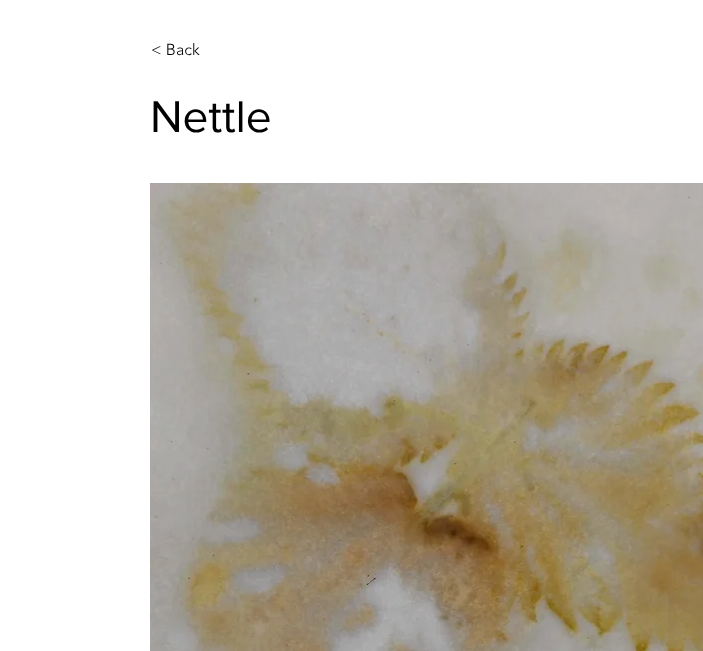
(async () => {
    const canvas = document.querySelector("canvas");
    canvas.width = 703;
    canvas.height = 651;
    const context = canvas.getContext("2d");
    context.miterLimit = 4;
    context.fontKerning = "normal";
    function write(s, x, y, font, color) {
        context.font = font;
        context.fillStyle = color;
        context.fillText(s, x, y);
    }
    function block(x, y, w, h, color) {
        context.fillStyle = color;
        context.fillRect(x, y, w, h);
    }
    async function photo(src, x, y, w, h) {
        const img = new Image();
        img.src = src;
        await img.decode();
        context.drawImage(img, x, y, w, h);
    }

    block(0, 0, 703, 651, "rgb(255, 255, 255)");
    write("< Back", 151, 55, "300 16px 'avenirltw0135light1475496'", "rgb(0, 0, 0)");
    write("Nettle", 150, 132, "46px 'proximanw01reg'", "rgb(0, 0, 0)");
    await photo("media/1.png", 150, 183, 553, 468);
})();
